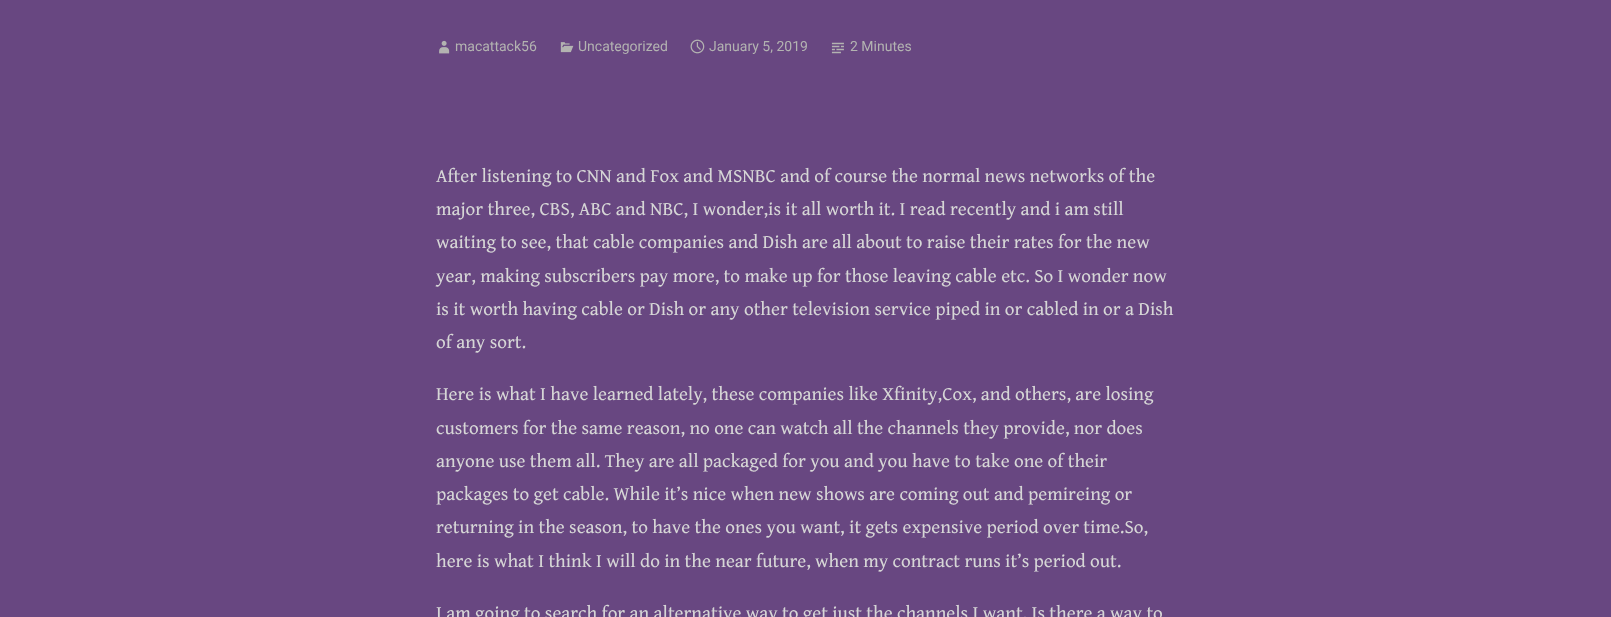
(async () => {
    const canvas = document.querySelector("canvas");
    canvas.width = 1611;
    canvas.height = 617;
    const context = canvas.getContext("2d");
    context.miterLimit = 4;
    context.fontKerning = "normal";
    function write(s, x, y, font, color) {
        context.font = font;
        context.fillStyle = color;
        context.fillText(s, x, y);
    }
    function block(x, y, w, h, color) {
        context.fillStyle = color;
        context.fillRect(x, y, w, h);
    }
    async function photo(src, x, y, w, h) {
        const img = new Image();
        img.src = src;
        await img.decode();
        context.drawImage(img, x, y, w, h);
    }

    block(0, 0, 1611, 617, "rgb(104, 71, 129)");
    await photo("media/1.png", 439, 40, 11, 14);
    write("macattack56", 455, 51, "14px Roboto", "rgb(179, 179, 177)");
    await photo("media/2.png", 560, 42, 14, 11);
    write("Uncategorized", 578, 51, "14px Roboto", "rgb(179, 179, 177)");
    await photo("media/3.png", 690, 39, 15, 15);
    write("January 5, 2019", 709, 51, "14px Roboto", "rgb(179, 179, 177)");
    await photo("media/4.png", 831, 42, 13, 12);
    write("2 Minutes", 850, 51, "14px Roboto", "rgb(179, 179, 177)");
    write("After listening to CNN and Fox and MSNBC and of course the normal news networks of the", 436, 182, "19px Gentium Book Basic", "rgb(214, 214, 214)");
    write("major three, CBS, ABC and NBC, I wonder,is it all worth it. I read recently and i am still", 436, 215, "19px Gentium Book Basic", "rgb(214, 214, 214)");
    write("waiting to see, that cable companies and Dish are all about to raise their rates for the new", 436, 248, "19px Gentium Book Basic", "rgb(214, 214, 214)");
    write("year, making subscribers pay more, to make up for those leaving cable etc. So I wonder now", 436, 282, "19px Gentium Book Basic", "rgb(214, 214, 214)");
    write("is it worth having cable or Dish or any other television service piped in or cabled in or a Dish", 436, 315, "19px Gentium Book Basic", "rgb(214, 214, 214)");
    write("of any sort.", 436, 348, "19px Gentium Book Basic", "rgb(214, 214, 214)");
    write("Here is what I have learned lately, these companies like Xfinity,Cox, and others, are losing", 436, 400, "19px Gentium Book Basic", "rgb(214, 214, 214)");
    write("customers for the same reason, no one can watch all the channels they provide, nor does", 436, 434, "19px Gentium Book Basic", "rgb(214, 214, 214)");
    write("anyone use them all. They are all packaged for you and you have to take one of their", 436, 467, "19px Gentium Book Basic", "rgb(214, 214, 214)");
    write("packages to get cable. While it’s nice when new shows are coming out and pemireing or", 436, 500, "19px Gentium Book Basic", "rgb(214, 214, 214)");
    write("returning in the season, to have the ones you want, it gets expensive period over time.So,", 436, 533, "19px Gentium Book Basic", "rgb(214, 214, 214)");
    write("here is what I think I will do in the near future, when my contract runs it’s period out.", 436, 567, "19px Gentium Book Basic", "rgb(214, 214, 214)");
    write("I am going to search for an alternative way to get just the channels I want. Is there a way to", 436, 619, "19px Gentium Book Basic", "rgb(214, 214, 214)");
})();
